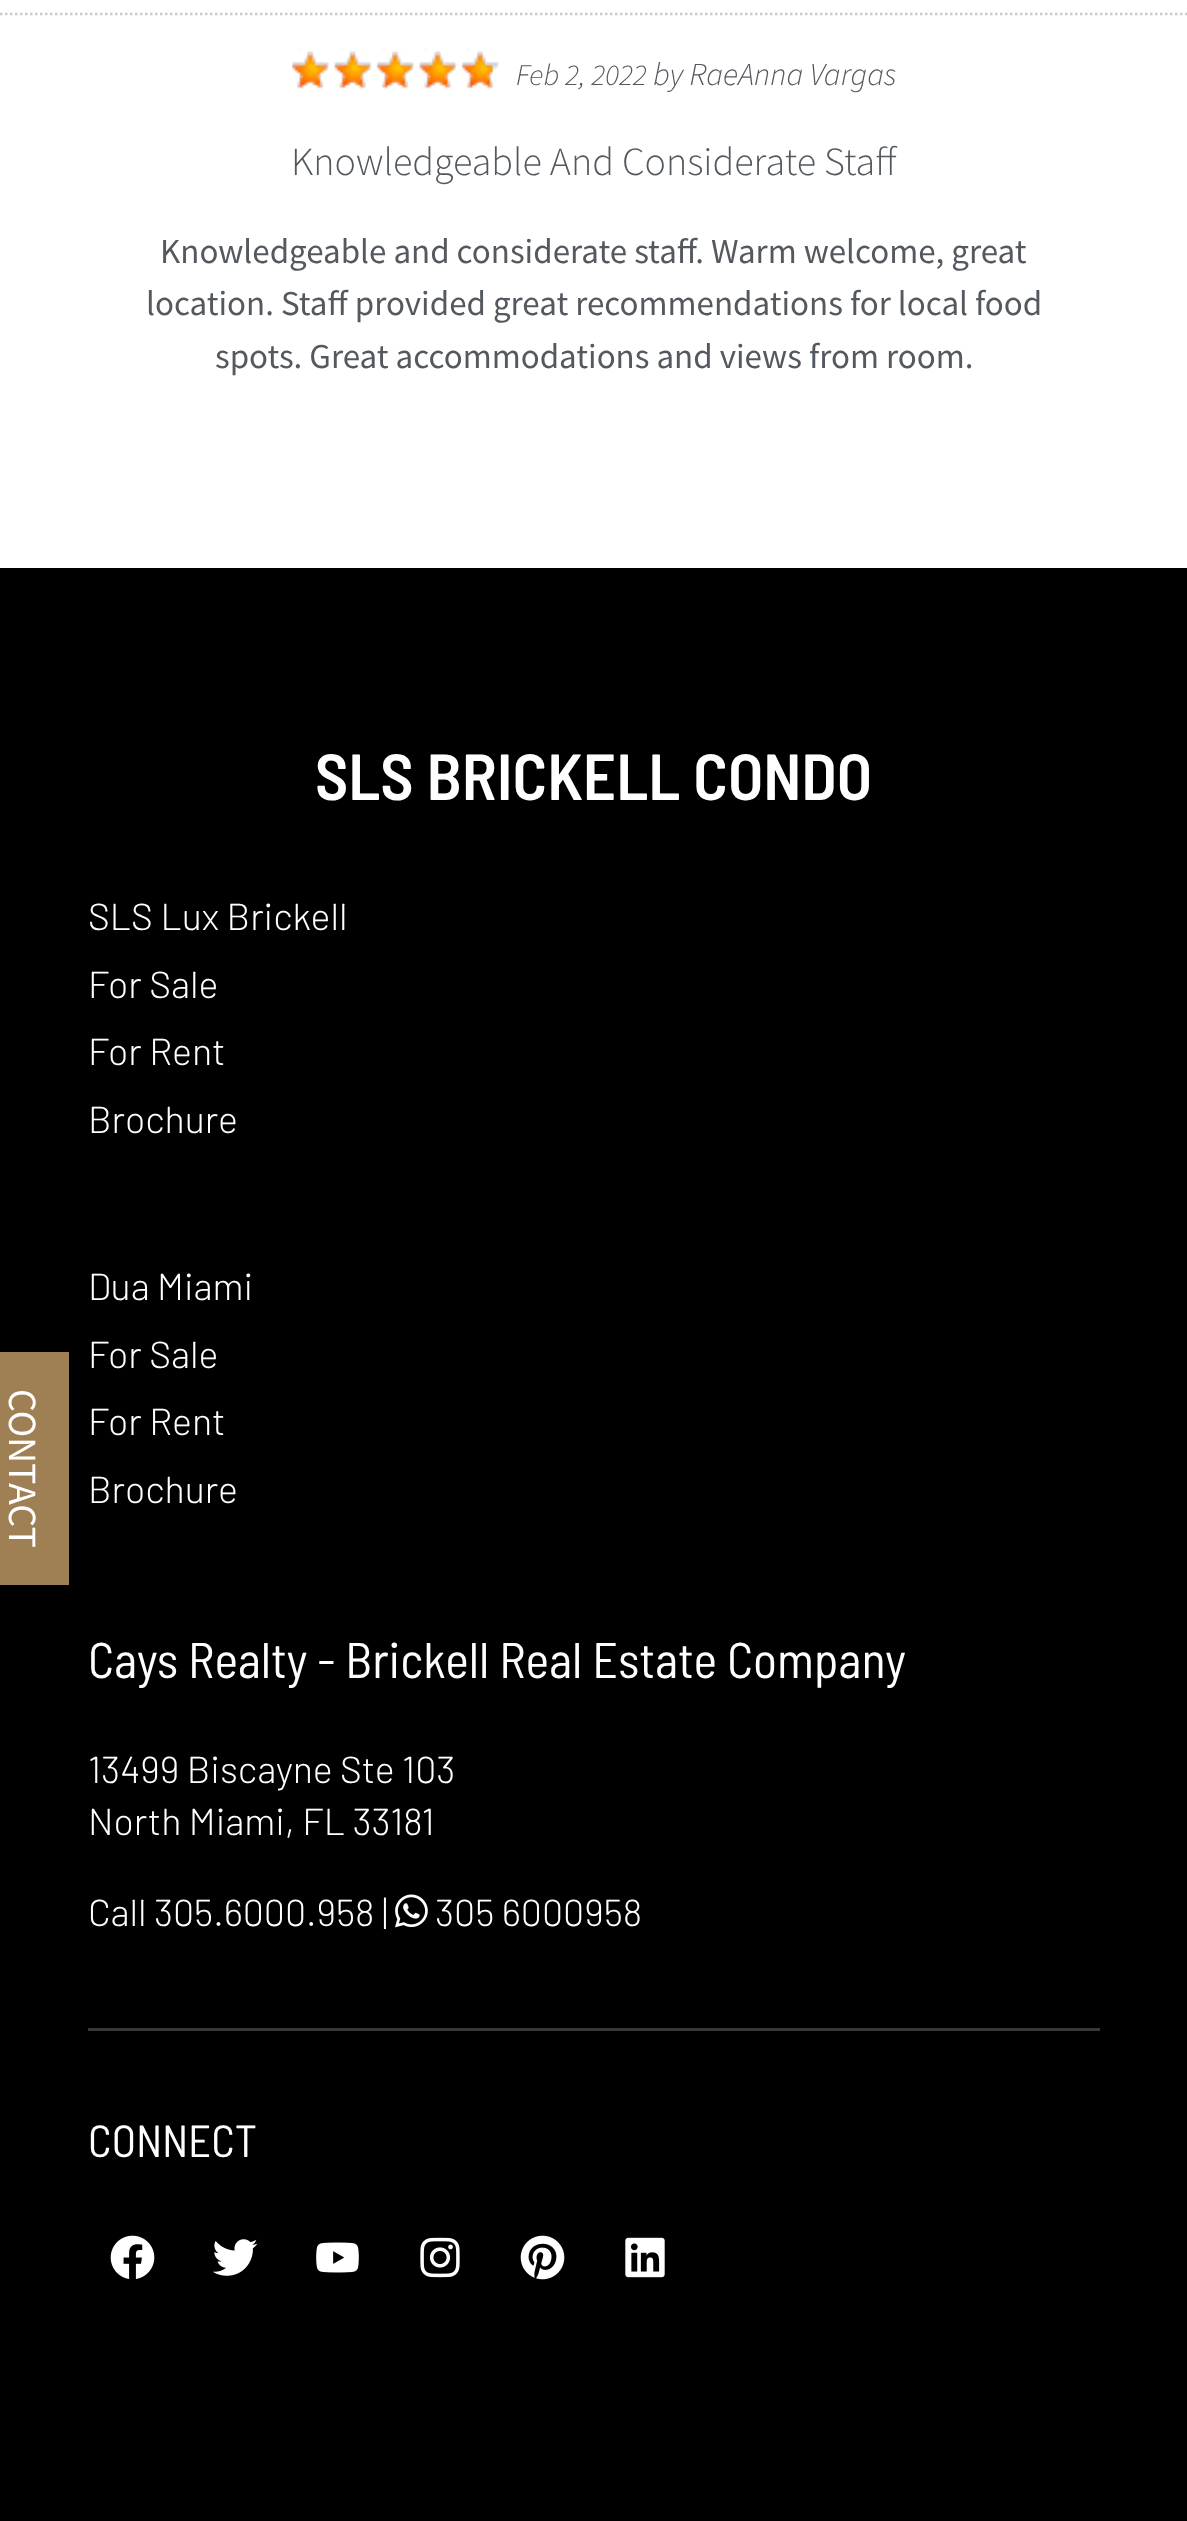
(async () => {
    const canvas = document.querySelector("canvas");
    canvas.width = 1187;
    canvas.height = 2521;
    const context = canvas.getContext("2d");
    context.miterLimit = 4;
    context.fontKerning = "normal";
    function write(s, x, y, font, color) {
        context.font = font;
        context.fillStyle = color;
        context.fillText(s, x, y);
    }
    function block(x, y, w, h, color) {
        context.fillStyle = color;
        context.fillRect(x, y, w, h);
    }
    async function photo(src, x, y, w, h) {
        const img = new Image();
        img.src = src;
        await img.decode();
        context.drawImage(img, x, y, w, h);
    }

    block(0, 0, 1187, 2521, "rgb(255, 255, 255)");
    context.beginPath();
    context.moveTo(0, 14);
    context.lineTo(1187.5, 14);
    context.strokeStyle = "rgb(204, 204, 204)";
    context.lineWidth = 2.5;
    context.setLineDash([2.5, 2.5]);
    context.stroke();
    await photo("media/1.png", 291, 50, 209, 37);
    await photo("media/2.png", 291, 48, 202, 41);
    write("Feb 2, 2022", 516, 85, "italic 300 30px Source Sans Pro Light", "rgb(84, 89, 95)");
    write("by RaeAnna Vargas", 653, 85, "italic 300 32px Source Sans Pro Light", "rgb(84, 89, 95)");
    write("Knowledgeable And Considerate Staff", 291, 175, "300 40px Source Sans Pro Light", "rgb(84, 89, 95)");
    write("Knowledgeable and considerate staff. Warm welcome, great", 160, 263, "35px Source Sans Pro", "rgb(84, 89, 95)");
    write("location. Staff provided great recommendations for local food", 146, 315, "35px Source Sans Pro", "rgb(84, 89, 95)");
    write("spots. Great accommodations and views from room.", 215, 368, "35px Source Sans Pro", "rgb(84, 89, 95)");
    block(0, 568, 1187, 1953, "rgb(0, 0, 0)");
    write("SLS BRICKELL CONDO", 315, 800, "600 65px Barlow Semi Condensed", "rgb(255, 255, 255)");
    block(0, 1352, 69, 233, "rgb(159, 127, 84)");
    context.font = "40px Source Sans Pro";
    context.fillStyle = "rgb(255, 255, 255)";
    context.save();
    context.translate(9, 1389);
    context.rotate(90 * Math.PI / 180);
    context.fillText("CONTACT", 0, 0);
    context.restore();
    write("SLS Lux Brickell", 88, 930, "300 37.5px Barlow", "rgb(255, 255, 255)");
    write("For Sale", 88, 998, "300 37.5px Barlow", "rgb(255, 255, 255)");
    write("For Rent", 88, 1065, "300 37.5px Barlow", "rgb(255, 255, 255)");
    write("Brochure", 88, 1133, "300 37.5px Barlow", "rgb(255, 255, 255)");
    write("Dua Miami", 88, 1300, "300 37.5px Barlow", "rgb(255, 255, 255)");
    write("For Sale", 88, 1368, "300 37.5px Barlow", "rgb(255, 255, 255)");
    write("For Rent", 88, 1435, "300 37.5px Barlow", "rgb(255, 255, 255)");
    write("Brochure", 88, 1503, "300 37.5px Barlow", "rgb(255, 255, 255)");
    write("Cays Realty - Brickell Real Estate Company", 88, 1678, "50px Barlow Semi Condensed", "rgb(255, 255, 255)");
    write("13499 Biscayne Ste 103", 88, 1783, "300 37.5px Barlow", "rgb(255, 255, 255)");
    write("North Miami, FL 33181", 88, 1835, "300 37.5px Barlow", "rgb(255, 255, 255)");
    write("Call 305.6000.958 |", 88, 1926, "300 37.5px Barlow", "rgb(255, 255, 255)");
    await photo("media/3.png", 395, 1894, 33, 34);
    write("305 6000958", 435, 1926, "300 37.5px Barlow", "rgb(255, 255, 255)");
    block(88, 2028, 1012, 3, "rgb(56, 56, 56)");
    write("CONNECT", 88, 2157, "45px Barlow Semi Condensed", "rgb(255, 255, 255)");
    await photo("media/4.png", 110, 2235, 45, 44);
    await photo("media/5.png", 213, 2239, 45, 37);
    await photo("media/6.png", 316, 2242, 43, 31);
    await photo("media/7.png", 420, 2237, 40, 41);
    await photo("media/8.png", 520, 2235, 45, 45);
    await photo("media/9.png", 625, 2237, 40, 41);
})();
